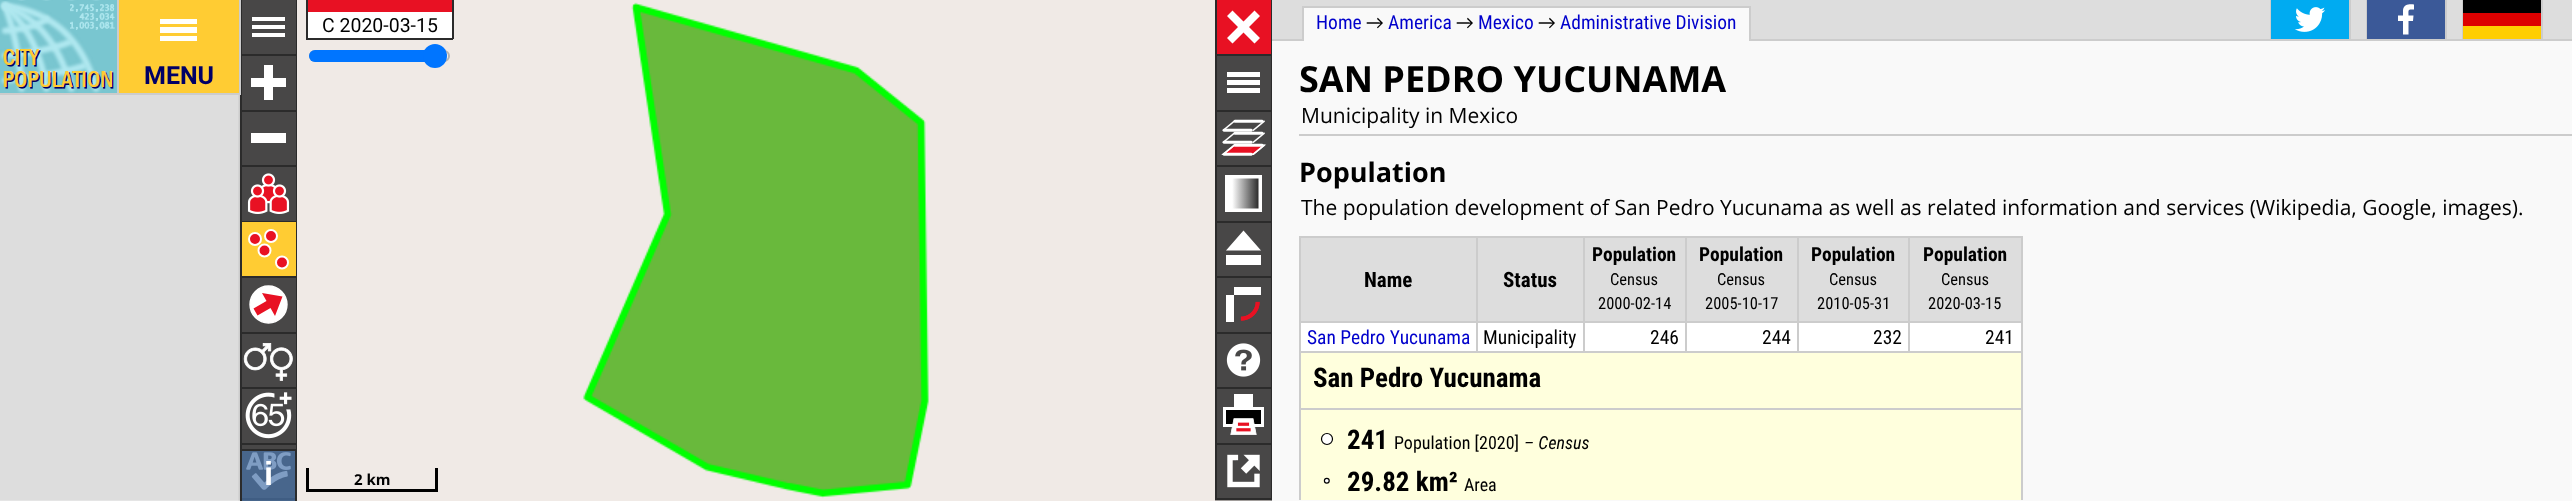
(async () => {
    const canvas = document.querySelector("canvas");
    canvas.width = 2572;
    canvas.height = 501;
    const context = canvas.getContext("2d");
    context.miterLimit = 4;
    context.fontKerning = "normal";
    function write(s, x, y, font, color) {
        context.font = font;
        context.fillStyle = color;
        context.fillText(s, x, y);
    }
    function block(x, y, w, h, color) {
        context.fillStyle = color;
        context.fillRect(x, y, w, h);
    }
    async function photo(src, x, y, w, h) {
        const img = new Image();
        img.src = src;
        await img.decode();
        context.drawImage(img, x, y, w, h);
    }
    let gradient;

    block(0, 0, 2572, 501, "rgb(249, 249, 249)");
    context.strokeStyle = "rgb(204, 204, 204)";
    context.lineWidth = 2;
    context.strokeRect(241, 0, 1030, 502);
    await photo("media/10.png", 242, 0, 1029, 501);
    block(242, 0, 54, 501, "rgba(43, 43, 43, 0.4)");
    block(242, 0, 54, 54, "rgba(43, 43, 43, 0.75)");
    block(240, 54, 57, 2, "rgb(43, 43, 43)");
    block(241, 0, 1, 54, "rgb(43, 43, 43)");
    block(252, 17, 33, 4, "rgb(255, 255, 255)");
    block(296, 0, 1, 54, "rgb(43, 43, 43)");
    block(252, 25, 33, 4, "rgb(255, 255, 255)");
    block(252, 33, 33, 4, "rgb(255, 255, 255)");
    block(242, 56, 54, 54, "rgba(43, 43, 43, 0.75)");
    block(240, 110, 57, 2, "rgb(43, 43, 43)");
    block(240, 56, 2, 54, "rgb(43, 43, 43)");
    block(251, 78, 35, 9, "rgb(255, 255, 255)");
    block(264, 65, 9, 35, "rgb(255, 255, 255)");
    block(296, 56, 1, 54, "rgb(43, 43, 43)");
    block(242, 112, 54, 53, "rgba(43, 43, 43, 0.75)");
    block(240, 165, 57, 2, "rgb(43, 43, 43)");
    block(240, 111, 2, 54, "rgb(43, 43, 43)");
    block(251, 133, 35, 10, "rgb(255, 255, 255)");
    block(296, 111, 1, 54, "rgb(43, 43, 43)");
    block(242, 167, 54, 54, "rgba(43, 43, 43, 0.75)");
    block(240, 221, 57, 1, "rgb(43, 43, 43)");
    block(240, 167, 2, 54, "rgb(43, 43, 43)");
    await photo("media/1.png", 247, 173, 43, 41);
    block(296, 167, 1, 54, "rgb(43, 43, 43)");
    block(242, 222, 54, 54, "rgb(255, 204, 51)");
    block(240, 276, 57, 2, "rgb(43, 43, 43)");
    block(240, 222, 2, 54, "rgb(43, 43, 43)");
    context.fillStyle = "rgb(232, 17, 35)";
    context.beginPath();
    context.arc(255, 239, 6, 0, Math.PI * 2);
    context.fill();
    context.strokeStyle = "rgb(255, 255, 255)";
    context.stroke();
    context.beginPath();
    context.arc(271, 236, 6, 0, Math.PI * 2);
    context.fill();
    context.stroke();
    block(296, 222, 1, 54, "rgb(43, 43, 43)");
    context.fillStyle = "rgb(232, 17, 35)";
    context.beginPath();
    context.arc(264.5, 250.5, 6, 0, Math.PI * 2);
    context.fill();
    context.stroke();
    context.beginPath();
    context.arc(282, 262.5, 6, 0, Math.PI * 2);
    context.fill();
    context.stroke();
    block(242, 278, 54, 54, "rgba(43, 43, 43, 0.75)");
    block(240, 332, 57, 2, "rgb(43, 43, 43)");
    block(240, 278, 2, 54, "rgb(43, 43, 43)");
    context.fillStyle = "rgb(255, 255, 255)";
    context.beginPath();
    context.arc(268.5, 304.5, 18.5, 0, Math.PI * 2);
    context.fill();
    context.lineWidth = 1.4;
    context.stroke();
    block(296, 278, 1, 54, "rgb(43, 43, 43)");
    context.fillStyle = "rgb(232, 17, 35)";
    context.beginPath();
    context.moveTo(253.5, 308.5);
    context.lineTo(266.5, 301);
    context.lineTo(262, 293);
    context.lineTo(282.5, 296.5);
    context.lineTo(275, 316);
    context.lineTo(270.5, 308);
    context.lineTo(257.5, 315.5);
    context.closePath();
    context.fill();
    block(242, 334, 54, 53, "rgba(43, 43, 43, 0.75)");
    block(240, 387, 57, 2, "rgb(43, 43, 43)");
    block(240, 333, 2, 54, "rgb(43, 43, 43)");
    await photo("media/2.png", 243, 343, 50, 38);
    block(296, 333, 1, 54, "rgb(43, 43, 43)");
    block(242, 389, 54, 54, "rgba(43, 43, 43, 0.75)");
    block(240, 443, 57, 2, "rgb(43, 43, 43)");
    block(240, 389, 2, 54, "rgb(43, 43, 43)");
    await photo("media/3.png", 245, 392, 47, 47);
    block(296, 389, 1, 54, "rgb(43, 43, 43)");
    block(242, 445, 54, 53, "rgba(43, 43, 43, 0.75)");
    block(240, 498, 57, 2, "rgb(43, 43, 43)");
    block(240, 444, 2, 5, "rgb(43, 43, 43)");
    block(296, 444, 1, 5, "rgb(43, 43, 43)");
    await photo("media/4.png", 246, 452, 45, 38);
    block(240, 500, 57, 1, "rgba(43, 43, 43, 0.75)");
    block(308, 0, 144, 12, "rgb(232, 17, 35)");
    block(452, 0, 2, 39, "rgb(43, 43, 43)");
    block(306, 38, 147, 2, "rgb(43, 43, 43)");
    block(306, 0, 2, 39, "rgb(43, 43, 43)");
    block(308, 12, 144, 26, "rgb(255, 255, 255)");
    write("C 2020-03-15", 322, 32, "19.5px Roboto", "rgb(0, 0, 0)");
    context.fillStyle = "rgb(239, 239, 239)";
    context.beginPath();
    context.roundRect(310, 51, 139, 10, 5);
    context.fill();
    context.strokeStyle = "rgb(178, 178, 178)";
    context.lineWidth = 2;
    context.stroke();
    context.fillStyle = "rgb(0, 117, 255)";
    context.beginPath();
    context.roundRect(309, 50, 126, 12, [6, 0, 0, 6]);
    context.fill();
    context.beginPath();
    context.arc(435, 56, 12, 0, Math.PI * 2);
    context.fill();
    block(1215, 56, 57, 445, "rgba(43, 43, 43, 0.4)");
    block(1217, 0, 54, 54, "rgb(232, 17, 35)");
    block(1215, 54, 57, 2, "rgb(43, 43, 43)");
    block(1215, 0, 2, 54, "rgb(43, 43, 43)");
    context.fillStyle = "rgb(255, 255, 255)";
    context.beginPath();
    context.moveTo(1232.5, 10.5);
    context.lineTo(1243.5, 21.5);
    context.lineTo(1254.5, 10.5);
    context.lineTo(1260, 16);
    context.lineTo(1249, 27);
    context.lineTo(1260, 38);
    context.lineTo(1254.5, 43.5);
    context.lineTo(1243.5, 32.5);
    context.lineTo(1232.5, 43.5);
    context.lineTo(1227, 38);
    context.lineTo(1238, 27);
    context.lineTo(1227, 16);
    context.closePath();
    context.fill();
    block(1271, 0, 1, 54, "rgb(43, 43, 43)");
    block(1217, 56, 54, 54, "rgba(43, 43, 43, 0.75)");
    block(1215, 110, 57, 2, "rgb(43, 43, 43)");
    block(1215, 56, 2, 54, "rgb(43, 43, 43)");
    block(1227, 72, 33, 5, "rgb(255, 255, 255)");
    block(1271, 56, 1, 54, "rgb(43, 43, 43)");
    block(1227, 80, 33, 5, "rgb(255, 255, 255)");
    block(1227, 88, 33, 5, "rgb(255, 255, 255)");
    block(1217, 112, 54, 53, "rgba(43, 43, 43, 0.75)");
    block(1215, 165, 57, 2, "rgb(43, 43, 43)");
    block(1215, 111, 2, 54, "rgb(43, 43, 43)");
    await photo("media/5.png", 1221, 119, 46, 37);
    block(1271, 111, 1, 54, "rgb(43, 43, 43)");
    block(1217, 167, 54, 54, "rgba(43, 43, 43, 0.75)");
    block(1215, 221, 57, 2, "rgb(43, 43, 43)");
    block(1215, 167, 2, 54, "rgb(43, 43, 43)");
    gradient = context.createLinearGradient(1227, 177, 1264, 177);
    gradient.addColorStop(0.14, "rgb(255, 255, 255)");
    gradient.addColorStop(1, "rgb(0, 0, 0)");
    context.fillStyle = gradient;
    context.fillRect(1228, 178, 31, 31);
    context.strokeStyle = "rgb(255, 255, 255)";
    context.lineWidth = 3.5;
    context.strokeRect(1226.75, 176.75, 33.5, 33.5);
    block(1271, 167, 1, 54, "rgb(43, 43, 43)");
    block(1217, 223, 54, 53, "rgba(43, 43, 43, 0.75)");
    block(1215, 276, 57, 2, "rgb(43, 43, 43)");
    block(1215, 222, 2, 54, "rgb(43, 43, 43)");
    context.fillStyle = "rgb(255, 255, 255)";
    context.beginPath();
    context.moveTo(1229.5, 249);
    context.lineTo(1257.5, 249);
    context.lineTo(1243.5, 233);
    context.closePath();
    context.fill();
    context.lineWidth = 3.2;
    context.stroke();
    block(1271, 222, 1, 54, "rgb(43, 43, 43)");
    block(1226, 255, 35, 10, "rgb(255, 255, 255)");
    block(1217, 278, 54, 54, "rgba(43, 43, 43, 0.75)");
    block(1215, 332, 57, 2, "rgb(43, 43, 43)");
    block(1215, 278, 2, 54, "rgb(43, 43, 43)");
    await photo("media/6.png", 1226, 287, 35, 35);
    block(1271, 278, 1, 54, "rgb(43, 43, 43)");
    block(1217, 334, 54, 53, "rgba(43, 43, 43, 0.75)");
    block(1215, 387, 57, 2, "rgb(43, 43, 43)");
    block(1215, 333, 2, 54, "rgb(43, 43, 43)");
    await photo("media/7.png", 1226, 343, 35, 34);
    block(1271, 333, 1, 54, "rgb(43, 43, 43)");
    block(1217, 389, 54, 54, "rgba(43, 43, 43, 0.75)");
    block(1215, 443, 57, 2, "rgb(43, 43, 43)");
    block(1215, 389, 2, 54, "rgb(43, 43, 43)");
    await photo("media/8.png", 1223, 394, 41, 41);
    block(1271, 389, 1, 54, "rgb(43, 43, 43)");
    block(1217, 445, 54, 53, "rgba(43, 43, 43, 0.75)");
    block(1215, 498, 57, 2, "rgb(43, 43, 43)");
    block(1215, 444, 2, 54, "rgb(43, 43, 43)");
    await photo("media/9.png", 1227, 454, 33, 34);
    block(1271, 444, 1, 54, "rgb(43, 43, 43)");
    block(242, 451, 53, 50, "rgba(255, 255, 255, 0.4)");
    context.fillStyle = "rgba(0, 60, 136, 0.5)";
    context.beginPath();
    context.rect(241, 450, 55, 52);
    context.fill();
    context.strokeStyle = "rgb(43, 43, 43)";
    context.lineWidth = 2;
    context.stroke();
    write("i", 264, 485, "bold 33px Liberation Sans", "rgb(255, 255, 255)");
    block(435, 468, 3, 24, "rgb(0, 0, 0)");
    block(306, 489, 132, 3, "rgb(0, 0, 0)");
    block(306, 468, 3, 24, "rgb(0, 0, 0)");
    write("2 km", 354, 485, "bold 15px Open Sans", "rgb(0, 0, 0)");
    block(1272, 0, 1300, 39, "rgb(221, 221, 221)");
    block(1272, 39, 1300, 2, "rgb(204, 204, 204)");
    block(1304, 8, 445, 33, "rgb(249, 249, 249)");
    block(1302, 6, 449, 2, "rgb(204, 204, 204)");
    block(1749, 6, 2, 35, "rgb(204, 204, 204)");
    block(1302, 6, 2, 35, "rgb(204, 204, 204)");
    write("Home", 1316, 29, "19.5px Roboto Condensed", "rgb(0, 0, 204)");
    write("→", 1366, 29, "19.5px Carlito", "rgb(0, 0, 0)");
    write("America", 1388, 29, "19.5px Roboto Condensed", "rgb(0, 0, 204)");
    write("→", 1456, 29, "19.5px Carlito", "rgb(0, 0, 0)");
    write("Mexico", 1478, 29, "19.5px Roboto Condensed", "rgb(0, 0, 204)");
    write("→", 1538, 29, "19.5px Carlito", "rgb(0, 0, 0)");
    write("Administrative Division", 1560, 29, "19.5px Roboto Condensed", "rgb(0, 0, 204)");
    block(2270, 0, 2, 41, "rgb(204, 204, 204)");
    await photo("media/11.png", 2271, 0, 78, 39);
    block(2349, 0, 2, 41, "rgb(204, 204, 204)");
    block(2366, 0, 2, 41, "rgb(204, 204, 204)");
    block(2367, 0, 78, 39, "rgb(59, 89, 152)");
    block(2445, 0, 2, 41, "rgb(204, 204, 204)");
    context.fillStyle = "rgb(255, 255, 255)";
    context.beginPath();
    context.moveTo(2408.5, 34.5);
    context.lineTo(2408.5, 21);
    context.lineTo(2413, 21);
    context.lineTo(2413.5, 15.5);
    context.lineTo(2408.5, 15.5);
    context.bezierCurveTo(2408.5, 9.5, 2407.5, 9.5, 2414, 9.5);
    context.lineTo(2414, 4.5);
    context.bezierCurveTo(2409.5, 4, 2404, 4, 2403, 10);
    context.lineTo(2403, 15.5);
    context.lineTo(2398, 15.5);
    context.lineTo(2398, 21);
    context.lineTo(2403, 21);
    context.lineTo(2403, 34.5);
    context.closePath();
    context.fill();
    block(2462, 0, 2, 41, "rgb(204, 204, 204)");
    block(2463, 0, 78, 13, "rgb(0, 0, 0)");
    block(2541, 0, 2, 41, "rgb(204, 204, 204)");
    block(2463, 13, 78, 13, "rgb(221, 0, 0)");
    block(2463, 26, 78, 13, "rgb(255, 206, 0)");
    await photo("media/12.png", 0, 0, 117, 93);
    block(117, 0, 2, 95, "rgb(204, 204, 204)");
    block(0, 93, 119, 2, "rgb(204, 204, 204)");
    block(119, 0, 120, 93, "rgb(255, 204, 51)");
    block(239, 0, 2, 95, "rgb(204, 204, 204)");
    block(119, 93, 121, 2, "rgb(204, 204, 204)");
    block(160, 19, 37, 5, "rgb(255, 255, 255)");
    block(160, 27, 37, 6, "rgb(255, 255, 255)");
    block(160, 36, 37, 5, "rgb(255, 255, 255)");
    write("MENU", 144, 84, "bold 25px Roboto", "rgb(0, 0, 102)");
    block(1299, 134, 1273, 2, "rgb(204, 204, 204)");
    write("SAN PEDRO YUCUNAMA", 1299, 92, "bold 36px Open Sans", "rgb(0, 0, 0)");
    write("Municipality in Mexico", 1301, 123, "21px Open Sans", "rgb(0, 0, 0)");
    write("Population", 1299, 182, "bold 27px Open Sans", "rgb(0, 0, 0)");
    write("The population development of San Pedro Yucunama as well as related information and services (Wikipedia, Google, images).", 1301, 215, "21px Open Sans", "rgb(0, 0, 0)");
    block(1299, 236, 723, 2, "rgb(204, 204, 204)");
    block(2021, 236, 2, 264, "rgb(204, 204, 204)");
    block(1299, 236, 2, 264, "rgb(204, 204, 204)");
    block(1301, 238, 175, 83, "rgb(221, 221, 221)");
    write("Name", 1364, 287, "bold 21px Roboto Condensed", "rgb(0, 0, 0)");
    block(1478, 238, 105, 83, "rgb(221, 221, 221)");
    block(1908, 321, 114, 2, "rgb(204, 204, 204)");
    block(1299, 351, 723, 2, "rgb(204, 204, 204)");
    block(1908, 321, 2, 32, "rgb(204, 204, 204)");
    block(1797, 321, 113, 2, "rgb(204, 204, 204)");
    block(1797, 321, 2, 32, "rgb(204, 204, 204)");
    block(1685, 321, 114, 2, "rgb(204, 204, 204)");
    block(1685, 321, 2, 32, "rgb(204, 204, 204)");
    block(1583, 321, 103, 2, "rgb(204, 204, 204)");
    block(1583, 321, 2, 32, "rgb(204, 204, 204)");
    block(1476, 321, 108, 2, "rgb(204, 204, 204)");
    block(1476, 321, 2, 32, "rgb(204, 204, 204)");
    block(1299, 321, 179, 2, "rgb(204, 204, 204)");
    block(1476, 236, 2, 87, "rgb(204, 204, 204)");
    write("Status", 1503, 287, "bold 21px Roboto Condensed", "rgb(0, 0, 0)");
    block(1585, 238, 100, 83, "rgb(221, 221, 221)");
    block(1583, 236, 2, 87, "rgb(204, 204, 204)");
    write("Population", 1592, 261, "bold 19.5px Roboto Condensed", "rgb(0, 0, 0)");
    write("Census", 1610, 285, "16.5px Roboto Condensed", "rgb(0, 0, 0)");
    write("2000-02-14", 1598, 309, "16.5px Roboto Condensed", "rgb(0, 0, 0)");
    block(1687, 238, 110, 83, "rgb(221, 221, 221)");
    block(1685, 236, 2, 87, "rgb(204, 204, 204)");
    write("Population", 1699, 261, "bold 19.5px Roboto Condensed", "rgb(0, 0, 0)");
    write("Census", 1717, 285, "16.5px Roboto Condensed", "rgb(0, 0, 0)");
    write("2005-10-17", 1705, 309, "16.5px Roboto Condensed", "rgb(0, 0, 0)");
    block(1799, 238, 109, 83, "rgb(221, 221, 221)");
    block(1797, 236, 2, 87, "rgb(204, 204, 204)");
    write("Population", 1811, 261, "bold 19.5px Roboto Condensed", "rgb(0, 0, 0)");
    write("Census", 1829, 285, "16.5px Roboto Condensed", "rgb(0, 0, 0)");
    write("2010-05-31", 1817, 309, "16.5px Roboto Condensed", "rgb(0, 0, 0)");
    block(1910, 238, 111, 83, "rgb(221, 221, 221)");
    block(1908, 236, 2, 87, "rgb(204, 204, 204)");
    write("Population", 1923, 261, "bold 19.5px Roboto Condensed", "rgb(0, 0, 0)");
    write("Census", 1941, 285, "16.5px Roboto Condensed", "rgb(0, 0, 0)");
    write("2020-03-15", 1928, 309, "16.5px Roboto Condensed", "rgb(0, 0, 0)");
    block(1301, 323, 175, 28, "rgb(255, 255, 255)");
    write("San Pedro Yucunama", 1307, 344, "19.5px Roboto Condensed", "rgb(0, 0, 204)");
    block(1478, 323, 105, 28, "rgb(255, 255, 255)");
    write("Municipality", 1483, 344, "19.5px Roboto Condensed", "rgb(0, 0, 0)");
    block(1585, 323, 100, 28, "rgb(255, 255, 255)");
    write("246", 1650, 344, "19.5px Roboto Condensed", "rgb(0, 0, 0)");
    block(1687, 323, 110, 28, "rgb(255, 255, 255)");
    write("244", 1762, 344, "19.5px Roboto Condensed", "rgb(0, 0, 0)");
    block(1799, 323, 109, 28, "rgb(255, 255, 255)");
    write("232", 1873, 344, "19.5px Roboto Condensed", "rgb(0, 0, 0)");
    block(1910, 323, 111, 28, "rgb(255, 255, 255)");
    write("241", 1985, 344, "19.5px Roboto Condensed", "rgb(0, 0, 0)");
    block(1301, 353, 720, 147, "rgb(255, 255, 221)");
    write("San Pedro Yucunama", 1313, 387, "bold 27px Roboto Condensed", "rgb(0, 0, 0)");
    block(1301, 408, 720, 2, "rgb(204, 204, 204)");
    context.fillStyle = "rgb(255, 255, 255)";
    context.beginPath();
    context.arc(1327, 439, 5.5, 0, Math.PI * 2);
    context.fill();
    context.strokeStyle = "rgb(0, 0, 0)";
    context.lineWidth = 1.2;
    context.stroke();
    write("241", 1347, 449, "bold 27px Roboto Condensed", "rgb(0, 0, 0)");
    write("Population [2020]", 1394, 449, "18px Roboto Condensed", "rgb(0, 0, 0)");
    write("– Census", 1524, 449, "italic 18px Roboto Condensed", "rgb(0, 0, 0)");
    context.fillStyle = "rgb(255, 255, 255)";
    context.beginPath();
    context.arc(1326.8, 480.8, 2.4, 0, Math.PI * 2);
    context.fill();
    context.stroke();
    write("29.82 km²", 1347, 491, "bold 27px Roboto Condensed", "rgb(0, 0, 0)");
    write("Area", 1464, 491, "18px Roboto Condensed", "rgb(0, 0, 0)");
    await photo("media/13.png", 0, 95, 240, 406);
})();
